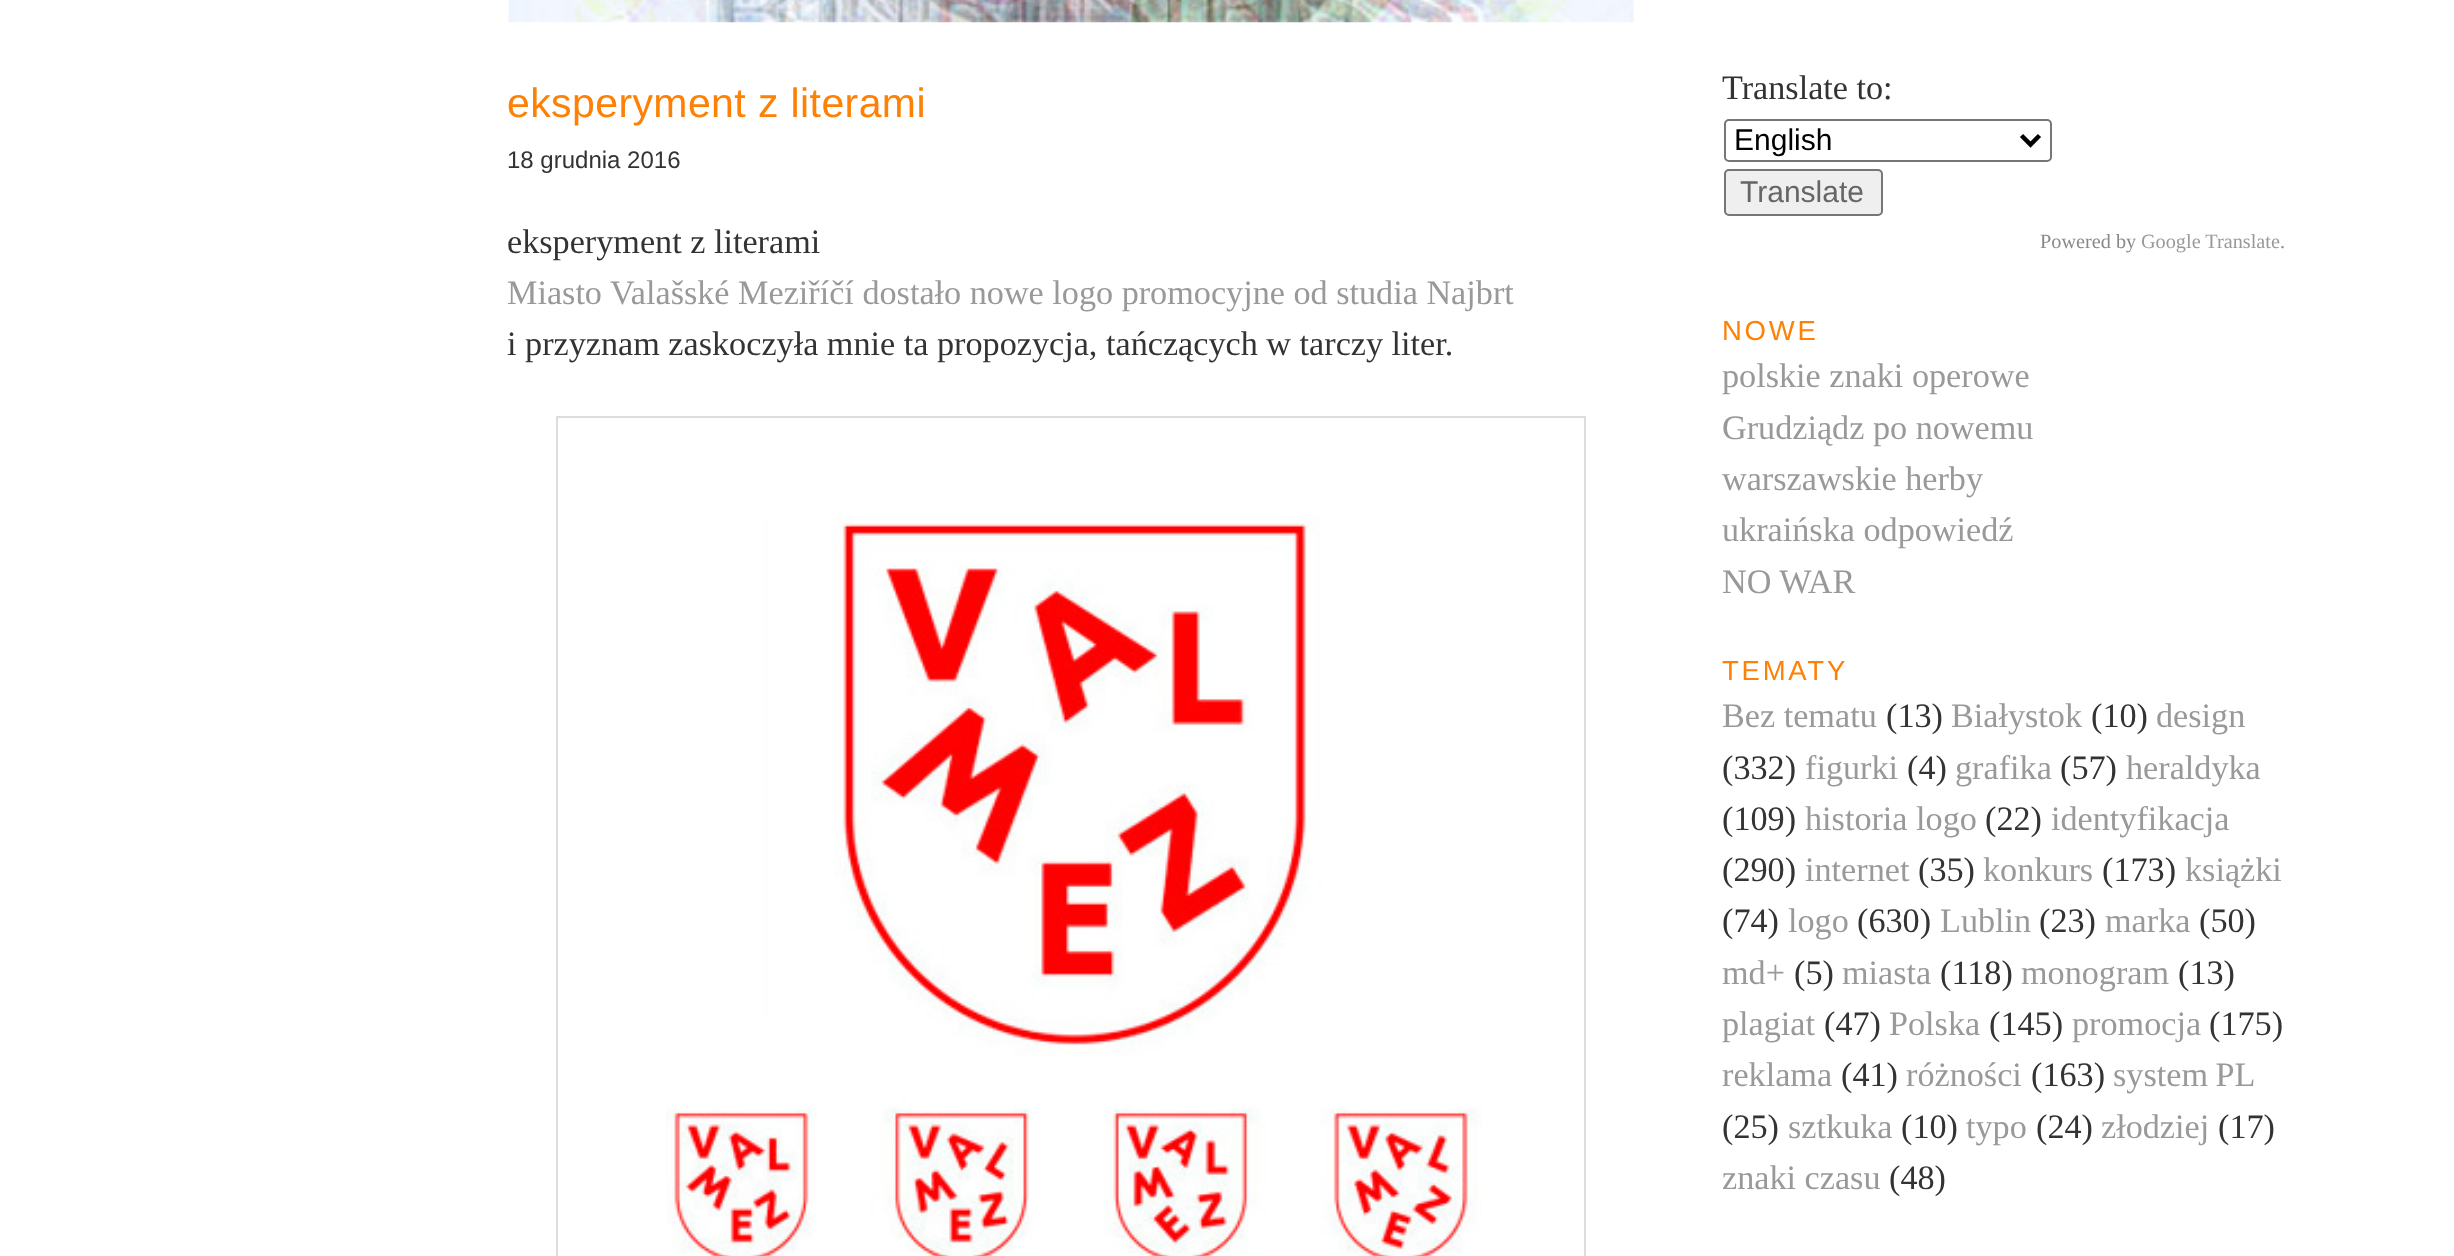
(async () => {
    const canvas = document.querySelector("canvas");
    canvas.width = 2454;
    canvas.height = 1256;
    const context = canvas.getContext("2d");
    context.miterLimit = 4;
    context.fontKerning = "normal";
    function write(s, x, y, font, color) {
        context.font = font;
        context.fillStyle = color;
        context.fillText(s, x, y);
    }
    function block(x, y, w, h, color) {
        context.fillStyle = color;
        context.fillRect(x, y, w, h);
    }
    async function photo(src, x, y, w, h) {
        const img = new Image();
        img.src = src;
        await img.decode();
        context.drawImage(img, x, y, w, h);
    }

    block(0, 0, 2454, 1256, "rgb(255, 255, 255)");
    await photo("media/1.png", 508, 0, 1126, 23);
    context.letterSpacing = "0.4px";
    write("eksperyment z literami", 507, 117, "41px Liberation Sans", "rgb(254, 129, 6)");
    context.letterSpacing = "0px";
    write("18 grudnia 2016", 507, 168, "24px Liberation Sans", "rgb(51, 51, 51)");
    write("eksperyment z literami", 507, 253, "34.2px Liberation Serif", "rgb(51, 51, 51)");
    write("Miasto Valašské Meziříčí dostało nowe logo promocyjne od studia Najbrt", 507, 304, "34.2px Liberation Serif", "rgb(153, 153, 153)");
    write("i przyznam zaskoczyła mnie ta propozycja, tańczących w tarczy liter.", 507, 355, "34.2px Liberation Serif", "rgb(51, 51, 51)");
    context.strokeStyle = "rgb(221, 221, 221)";
    context.lineWidth = 2;
    context.strokeRect(557, 417, 1028, 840);
    await photo("media/2.png", 666, 515, 816, 741);
    write("Translate to:", 1722, 99, "34.2px Liberation Serif", "rgb(51, 51, 51)");
    context.beginPath();
    context.roundRect(1725, 120, 326, 41, 4);
    context.strokeStyle = "rgb(118, 118, 118)";
    context.stroke();
    context.beginPath();
    context.moveTo(2021.5, 135.5);
    context.lineTo(2030.5, 144.5);
    context.lineTo(2039.5, 135.5);
    context.strokeStyle = "rgb(0, 0, 0)";
    context.lineWidth = 4.5;
    context.stroke();
    write("English", 1734, 150, "30px Liberation Sans", "rgb(0, 0, 0)");
    context.fillStyle = "rgb(239, 239, 239)";
    context.beginPath();
    context.roundRect(1725, 170, 157, 45, 4);
    context.fill();
    context.strokeStyle = "rgb(118, 118, 118)";
    context.lineWidth = 2;
    context.stroke();
    write("Translate", 1740, 202, "30px Liberation Sans", "rgb(102, 102, 102)");
    write("Powered by", 2040, 248, "20.25px Liberation Serif", "rgb(136, 136, 136)");
    write("Google Translate", 2141, 248, "20.25px Liberation Serif", "rgb(153, 153, 153)");
    write(".", 2280, 248, "20.25px Liberation Serif", "rgb(136, 136, 136)");
    context.letterSpacing = "2.75px";
    write("NOWE", 1722, 340, "27.5px Liberation Sans", "rgb(254, 129, 6)");
    context.letterSpacing = "0px";
    write("polskie znaki operowe", 1722, 387, "34.2px Liberation Serif", "rgb(153, 153, 153)");
    write("Grudziądz po nowemu", 1722, 439, "34.2px Liberation Serif", "rgb(153, 153, 153)");
    write("warszawskie herby", 1722, 490, "34.2px Liberation Serif", "rgb(153, 153, 153)");
    write("ukraińska odpowiedź", 1722, 541, "34.2px Liberation Serif", "rgb(153, 153, 153)");
    write("NO WAR", 1722, 593, "34.2px Liberation Serif", "rgb(153, 153, 153)");
    context.letterSpacing = "2.75px";
    write("TEMATY", 1722, 680, "27.5px Liberation Sans", "rgb(254, 129, 6)");
    context.letterSpacing = "0px";
    write("Bez tematu", 1722, 727, "34.2px Liberation Serif", "rgb(153, 153, 153)");
    write("(13)", 1886, 727, "34.2px Liberation Serif", "rgb(51, 51, 51)");
    write("Białystok", 1951, 727, "34.2px Liberation Serif", "rgb(153, 153, 153)");
    write("(10)", 2091, 727, "34.2px Liberation Serif", "rgb(51, 51, 51)");
    write("design", 2156, 727, "34.2px Liberation Serif", "rgb(153, 153, 153)");
    write("(332)", 1722, 779, "34.2px Liberation Serif", "rgb(51, 51, 51)");
    write("figurki", 1805, 779, "34.2px Liberation Serif", "rgb(153, 153, 153)");
    write("(4)", 1907, 779, "34.2px Liberation Serif", "rgb(51, 51, 51)");
    write("grafika", 1955, 779, "34.2px Liberation Serif", "rgb(153, 153, 153)");
    write("(57)", 2060, 779, "34.2px Liberation Serif", "rgb(51, 51, 51)");
    write("heraldyka", 2126, 779, "34.2px Liberation Serif", "rgb(153, 153, 153)");
    write("(109)", 1722, 830, "34.2px Liberation Serif", "rgb(51, 51, 51)");
    write("historia logo", 1805, 830, "34.2px Liberation Serif", "rgb(153, 153, 153)");
    write("(22)", 1985, 830, "34.2px Liberation Serif", "rgb(51, 51, 51)");
    write("identyfikacja", 2051, 830, "34.2px Liberation Serif", "rgb(153, 153, 153)");
    write("(290)", 1722, 881, "34.2px Liberation Serif", "rgb(51, 51, 51)");
    write("internet", 1805, 881, "34.2px Liberation Serif", "rgb(153, 153, 153)");
    write("(35)", 1918, 881, "34.2px Liberation Serif", "rgb(51, 51, 51)");
    write("konkurs", 1983, 881, "34.2px Liberation Serif", "rgb(153, 153, 153)");
    write("(173)", 2102, 881, "34.2px Liberation Serif", "rgb(51, 51, 51)");
    write("książki", 2185, 881, "34.2px Liberation Serif", "rgb(153, 153, 153)");
    write("(74)", 1722, 932, "34.2px Liberation Serif", "rgb(51, 51, 51)");
    write("logo", 1788, 932, "34.2px Liberation Serif", "rgb(153, 153, 153)");
    write("(630)", 1857, 932, "34.2px Liberation Serif", "rgb(51, 51, 51)");
    write("Lublin", 1940, 932, "34.2px Liberation Serif", "rgb(153, 153, 153)");
    write("(23)", 2039, 932, "34.2px Liberation Serif", "rgb(51, 51, 51)");
    write("marka", 2105, 932, "34.2px Liberation Serif", "rgb(153, 153, 153)");
    write("(50)", 2199, 932, "34.2px Liberation Serif", "rgb(51, 51, 51)");
    write("md+", 1722, 984, "34.2px Liberation Serif", "rgb(153, 153, 153)");
    write("(5)", 1794, 984, "34.2px Liberation Serif", "rgb(51, 51, 51)");
    write("miasta", 1842, 984, "34.2px Liberation Serif", "rgb(153, 153, 153)");
    write("(118)", 1940, 984, "34.2px Liberation Serif", "rgb(51, 51, 51)");
    write("monogram", 2021, 984, "34.2px Liberation Serif", "rgb(153, 153, 153)");
    write("(13)", 2178, 984, "34.2px Liberation Serif", "rgb(51, 51, 51)");
    write("plagiat", 1722, 1035, "34.2px Liberation Serif", "rgb(153, 153, 153)");
    write("(47)", 1824, 1035, "34.2px Liberation Serif", "rgb(51, 51, 51)");
    write("Polska", 1889, 1035, "34.2px Liberation Serif", "rgb(153, 153, 153)");
    write("(145)", 1989, 1035, "34.2px Liberation Serif", "rgb(51, 51, 51)");
    write("promocja", 2072, 1035, "34.2px Liberation Serif", "rgb(153, 153, 153)");
    write("(175)", 2209, 1035, "34.2px Liberation Serif", "rgb(51, 51, 51)");
    write("reklama", 1722, 1086, "34.2px Liberation Serif", "rgb(153, 153, 153)");
    write("(41)", 1841, 1086, "34.2px Liberation Serif", "rgb(51, 51, 51)");
    write("różności", 1906, 1086, "34.2px Liberation Serif", "rgb(153, 153, 153)");
    write("(163)", 2031, 1086, "34.2px Liberation Serif", "rgb(51, 51, 51)");
    context.wordSpacing = "-1px";
    write("system PL", 2113, 1086, "34.2px Liberation Serif", "rgb(153, 153, 153)");
    context.wordSpacing = "0px";
    write("(25)", 1722, 1138, "34.2px Liberation Serif", "rgb(51, 51, 51)");
    write("sztkuka", 1788, 1138, "34.2px Liberation Serif", "rgb(153, 153, 153)");
    write("(10)", 1901, 1138, "34.2px Liberation Serif", "rgb(51, 51, 51)");
    write("typo", 1966, 1138, "34.2px Liberation Serif", "rgb(153, 153, 153)");
    write("(24)", 2036, 1138, "34.2px Liberation Serif", "rgb(51, 51, 51)");
    write("złodziej", 2101, 1138, "34.2px Liberation Serif", "rgb(153, 153, 153)");
    write("(17)", 2218, 1138, "34.2px Liberation Serif", "rgb(51, 51, 51)");
    write("znaki czasu", 1722, 1189, "34.2px Liberation Serif", "rgb(153, 153, 153)");
    write("(48)", 1889, 1189, "34.2px Liberation Serif", "rgb(51, 51, 51)");
})();
